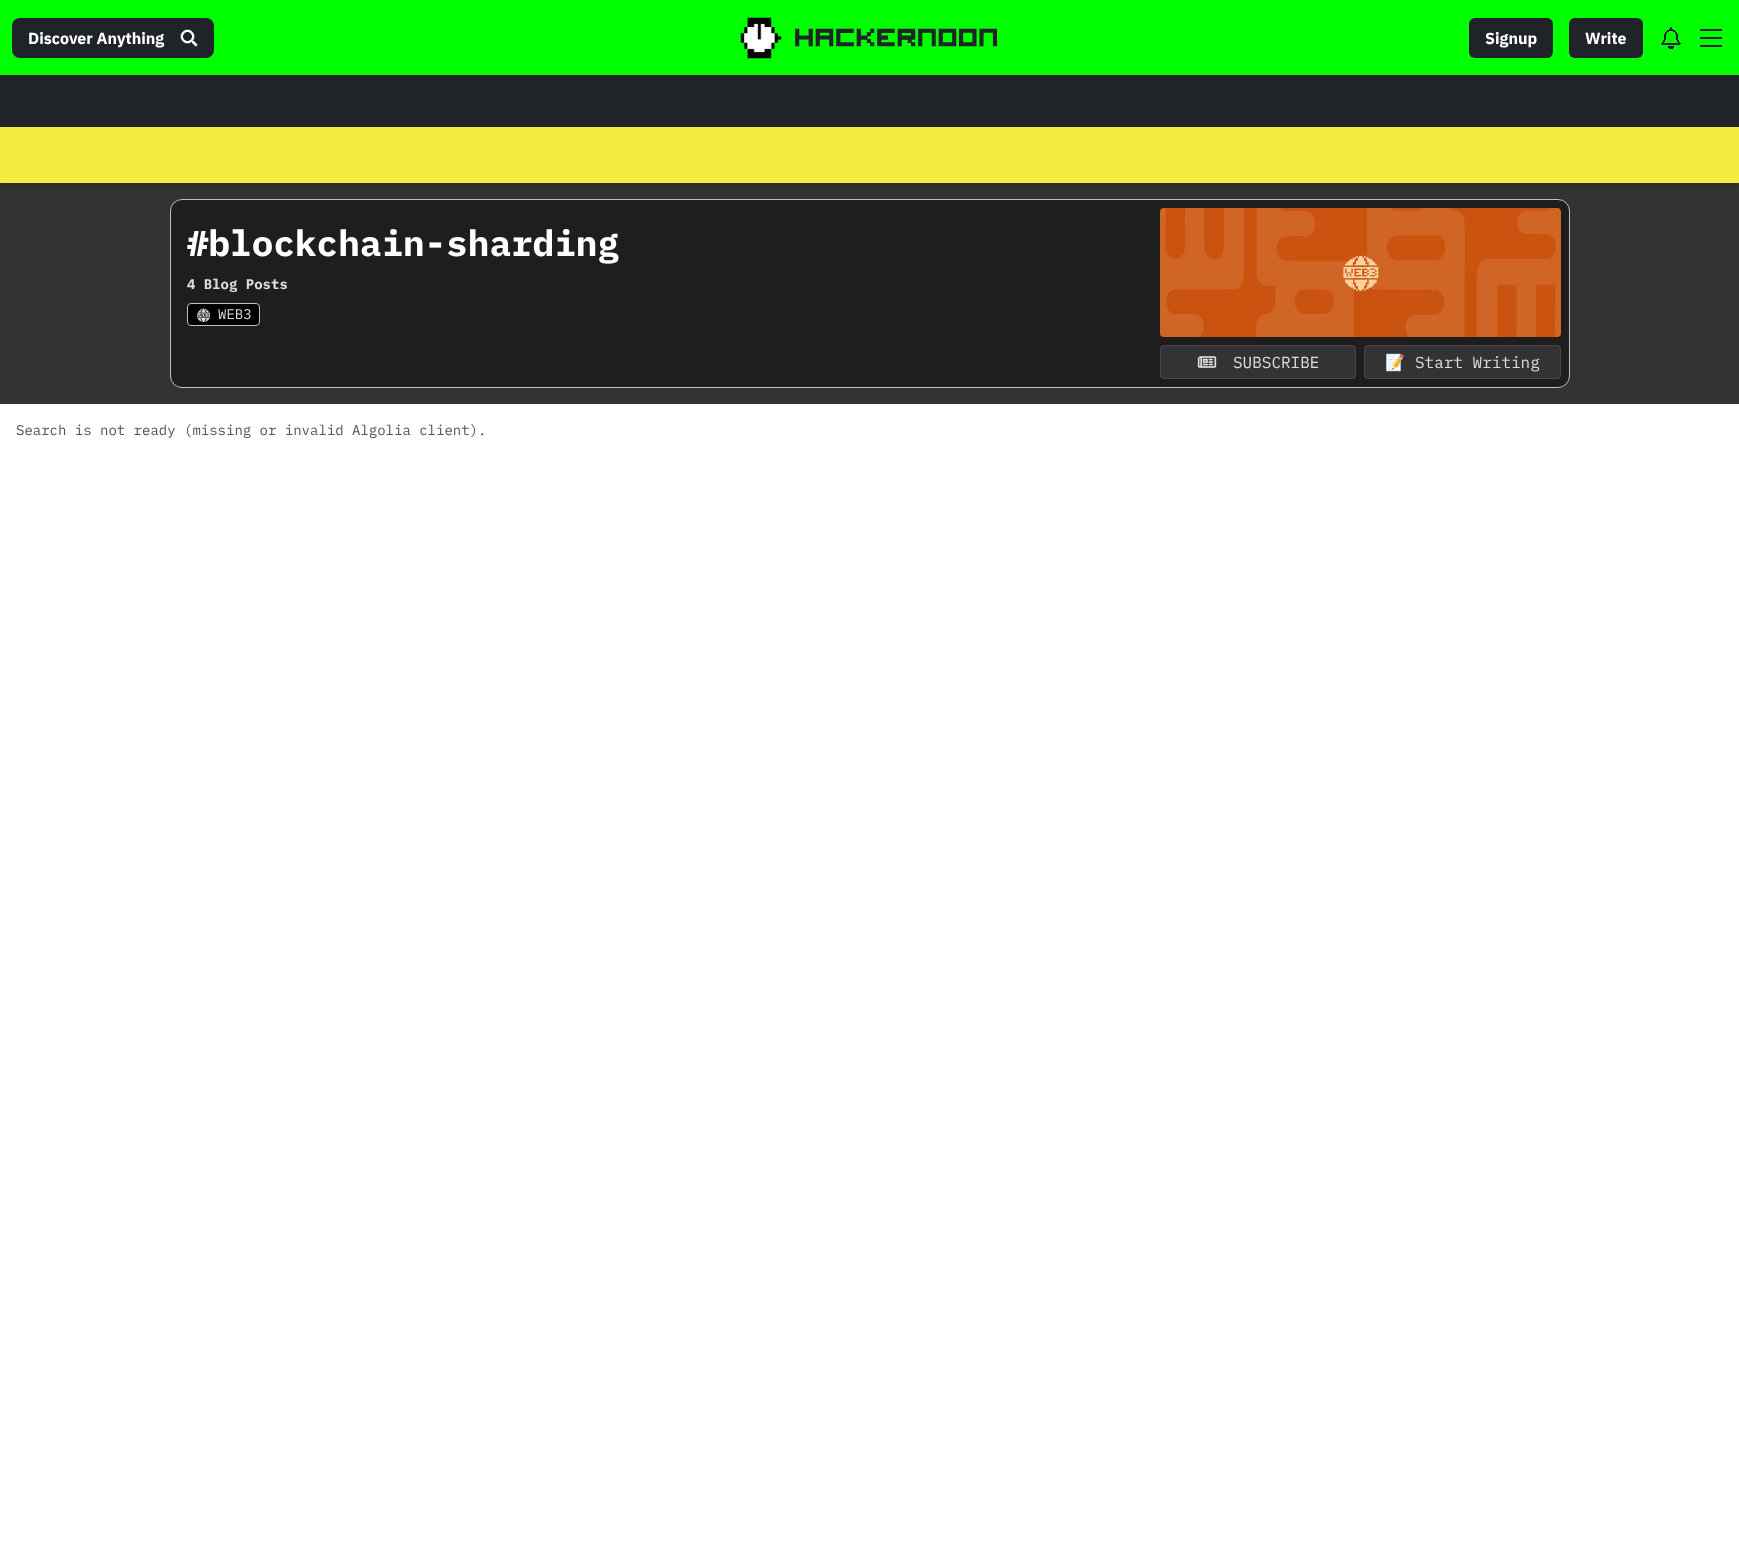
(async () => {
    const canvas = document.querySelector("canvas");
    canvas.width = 1739;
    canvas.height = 1551;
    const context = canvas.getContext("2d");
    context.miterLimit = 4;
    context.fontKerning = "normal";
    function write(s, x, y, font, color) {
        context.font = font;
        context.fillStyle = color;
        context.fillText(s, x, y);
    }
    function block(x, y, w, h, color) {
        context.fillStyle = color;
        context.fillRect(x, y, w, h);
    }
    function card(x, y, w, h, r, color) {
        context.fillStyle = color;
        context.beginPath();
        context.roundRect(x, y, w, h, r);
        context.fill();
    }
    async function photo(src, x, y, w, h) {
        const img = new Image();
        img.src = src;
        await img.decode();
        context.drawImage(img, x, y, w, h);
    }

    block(0, 0, 1739, 1551, "rgb(255, 255, 255)");
    block(0, 0, 1739, 75, "rgb(0, 255, 0)");
    card(12, 18, 202, 40, 8, "rgb(32, 35, 39)");
    write("Discover Anything", 28, 44, "bold 16px IBM Plex Sans", "rgb(255, 255, 255)");
    await photo("media/1.png", 180, 29, 18, 18);
    await photo("media/2.png", 740, 17, 42, 42);
    context.letterSpacing = "1.25px";
    write("Hackernoon", 794, 44, "bold 24px 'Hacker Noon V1'", "rgb(32, 35, 39)");
    card(1469, 18, 84, 40, 6, "rgb(32, 35, 39)");
    context.letterSpacing = "0px";
    write("Signup", 1485, 44, "bold 16px IBM Plex Sans", "rgb(255, 255, 255)");
    card(1569, 18, 74, 40, 6, "rgb(32, 35, 39)");
    write("Write", 1585, 44, "bold 16px IBM Plex Sans", "rgb(255, 255, 255)");
    await photo("media/3.png", 1661, 27, 20, 22);
    await photo("media/4.png", 1700, 29, 22, 18);
    block(0, 75, 1739, 52, "rgb(32, 35, 39)");
    block(0, 183, 1739, 221, "rgb(51, 51, 51)");
    context.fillStyle = "rgba(0, 0, 0, 0.1)";
    context.filter = "blur(2px)";
    context.beginPath();
    context.rect(2, 131, 1735, 52);
    context.fill();
    context.filter = "none";
    context.filter = "blur(3px)";
    context.beginPath();
    context.rect(1, 132, 1737, 54);
    context.fill();
    context.filter = "none";
    block(0, 127, 1739, 56, "rgb(245, 236, 66)");
    context.fillStyle = "rgb(30, 30, 30)";
    context.beginPath();
    context.roundRect(170.5, 199.5, 1399, 188, 11.5);
    context.fill();
    context.strokeStyle = "rgb(192, 192, 192)";
    context.stroke();
    write("#blockchain-sharding", 187, 256, "bold 36px IBM Plex Mono", "rgb(255, 255, 255)");
    write("4 Blog Posts", 187, 289, "bold 14px IBM Plex Mono", "rgb(221, 221, 221)");
    context.fillStyle = "rgb(0, 0, 0)";
    context.beginPath();
    context.roundRect(187.5, 303.5, 72, 22, 3.5);
    context.fill();
    context.stroke();
    await photo("media/5.png", 197, 308, 13, 14);
    write("WEB3", 218, 319, "14px IBM Plex Mono", "rgb(221, 221, 221)");
    await photo("media/6.png", 1160, 208, 401, 129);
    card(1160, 345, 196, 34, 4, "rgb(51, 51, 51)");
    context.beginPath();
    context.roundRect(1160.5, 345.5, 195, 33, 3.5);
    context.strokeStyle = "rgba(255, 255, 255, 0.1)";
    context.stroke();
    await photo("media/7.png", 1197, 356, 20, 12);
    write("SUBSCRIBE", 1233, 368, "16px IBM Plex Mono", "rgb(221, 221, 221)");
    card(1364, 345, 197, 34, 4, "rgb(51, 51, 51)");
    context.beginPath();
    context.roundRect(1364.5, 345.5, 196, 33, 3.5);
    context.stroke();
    write("📝", 1385, 368, "16px Noto Color Emoji", "rgb(221, 221, 221)");
    write("Start Writing", 1415, 368, "16px IBM Plex Mono", "rgb(221, 221, 221)");
    write("Search is not ready (missing or invalid Algolia client).", 16, 435, "14px IBM Plex Mono", "rgb(75, 85, 99)");
})();
